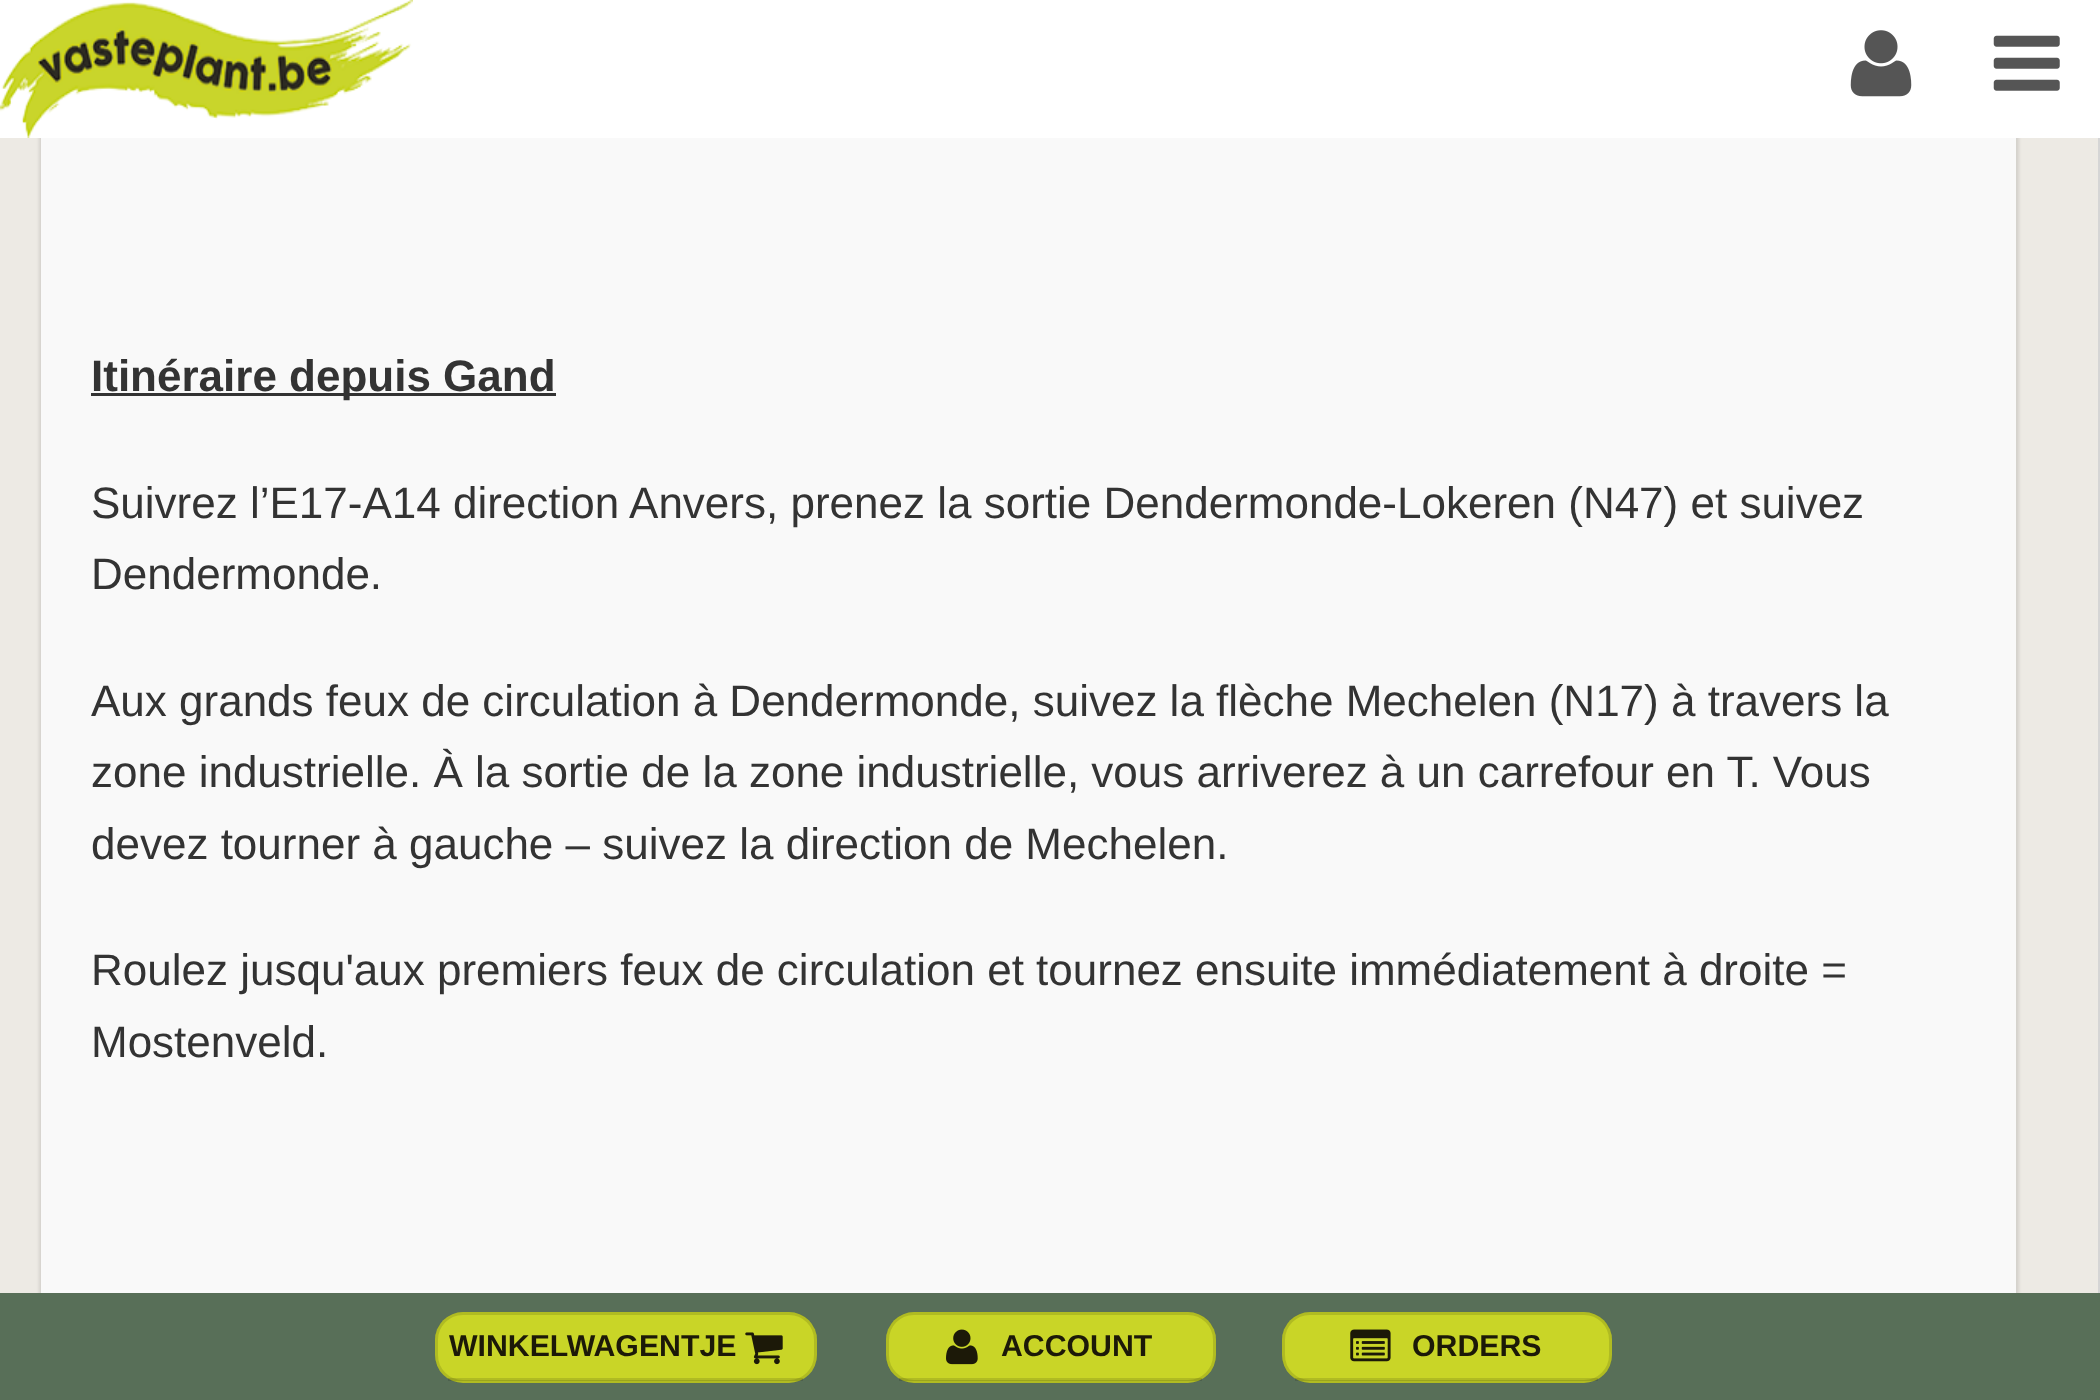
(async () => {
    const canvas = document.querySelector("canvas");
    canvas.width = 2100;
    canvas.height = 1400;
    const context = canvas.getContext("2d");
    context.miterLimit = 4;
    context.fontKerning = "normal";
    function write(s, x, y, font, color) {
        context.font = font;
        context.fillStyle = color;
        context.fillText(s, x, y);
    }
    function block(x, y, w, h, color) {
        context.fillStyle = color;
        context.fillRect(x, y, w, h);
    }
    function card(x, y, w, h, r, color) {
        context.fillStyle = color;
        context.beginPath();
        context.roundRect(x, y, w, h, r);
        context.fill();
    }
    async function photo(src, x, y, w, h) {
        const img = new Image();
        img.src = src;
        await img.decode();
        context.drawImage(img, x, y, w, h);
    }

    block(0, 0, 2100, 1400, "rgb(237, 234, 228)");
    context.fillStyle = "rgba(0, 0, 0, 0.1)";
    context.filter = "blur(1.5px)";
    context.beginPath();
    context.rect(39, -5, 1980, 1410);
    context.fill();
    context.filter = "none";
    block(0, 0, 2100, 138, "rgb(255, 255, 255)");
    await photo("media/1.png", 0, 0, 413, 138);
    await photo("media/2.png", 1850, 30, 62, 67);
    await photo("media/3.png", 1993, 35, 67, 56);
    block(2098, 138, 2, 1155, "rgb(213, 213, 213)");
    block(41, 138, 1975, 1155, "rgb(249, 249, 249)");
    block(91, 393, 465, 3, "rgb(51, 51, 51)");
    write("Itinéraire depuis Gand", 91, 391, "bold 44px Liberation Sans", "rgb(51, 51, 51)");
    write("Suivrez l’E17-A14 direction Anvers, prenez la sortie Dendermonde-Lokeren (N47) et suivez", 91, 518, "44px Liberation Sans", "rgb(51, 51, 51)");
    write("Dendermonde.", 91, 589, "44px Liberation Sans", "rgb(51, 51, 51)");
    write("Aux grands feux de circulation à Dendermonde, suivez la flèche Mechelen (N17) à travers la", 91, 716, "44px Liberation Sans", "rgb(51, 51, 51)");
    write("zone industrielle. À la sortie de la zone industrielle, vous arriverez à un carrefour en T. Vous", 91, 787, "44px Liberation Sans", "rgb(51, 51, 51)");
    write("devez tourner à gauche – suivez la direction de Mechelen.", 91, 859, "44px Liberation Sans", "rgb(51, 51, 51)");
    write("Roulez jusqu'aux premiers feux de circulation et tournez ensuite immédiatement à droite =", 91, 985, "44px Liberation Sans", "rgb(51, 51, 51)");
    write("Mostenveld.", 91, 1057, "44px Liberation Sans", "rgb(51, 51, 51)");
    block(0, 1293, 2100, 107, "rgb(88, 111, 88)");
    card(435, 1312, 382, 71, 28, "rgb(201, 213, 39)");
    context.beginPath();
    context.roundRect(436.5, 1313.5, 379, 68, 26.5);
    context.strokeStyle = "rgba(0, 0, 0, 0.12)";
    context.lineWidth = 3;
    context.stroke();
    block(448, 1378, 355, 3, "rgba(0, 0, 0, 0.12)");
    write("WINKELWAGENTJE", 449, 1356, "bold 30.25px Liberation Sans", "rgb(28, 25, 8)");
    await photo("media/4.png", 745, 1332, 38, 33);
    card(886, 1312, 330, 71, 28, "rgb(201, 213, 39)");
    context.beginPath();
    context.roundRect(887.5, 1313.5, 327, 68, 26.5);
    context.stroke();
    block(899, 1378, 303, 3, "rgba(0, 0, 0, 0.12)");
    await photo("media/5.png", 946, 1329, 32, 36);
    write("ACCOUNT", 1001, 1356, "bold 30.25px Liberation Sans", "rgb(28, 25, 8)");
    card(1282, 1312, 330, 71, 28, "rgb(201, 213, 39)");
    context.beginPath();
    context.roundRect(1283.5, 1313.5, 327, 68, 26.5);
    context.stroke();
    block(1295, 1378, 303, 3, "rgba(0, 0, 0, 0.12)");
    await photo("media/6.png", 1350, 1329, 41, 33);
    write("ORDERS", 1412, 1356, "bold 30.25px Liberation Sans", "rgb(28, 25, 8)");
})();
